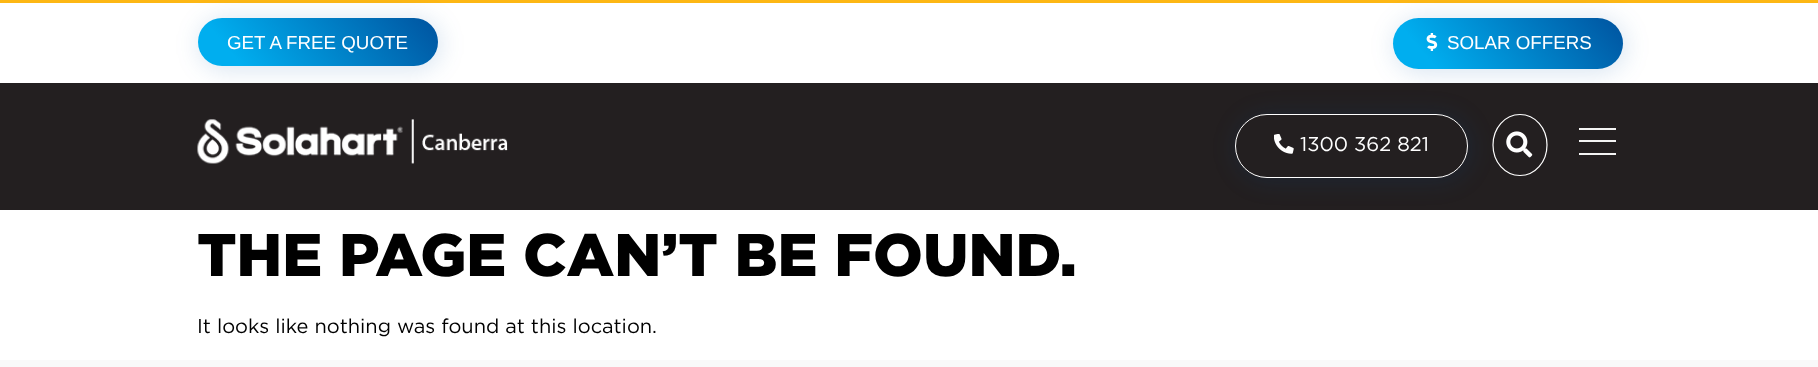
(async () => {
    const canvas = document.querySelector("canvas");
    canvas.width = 1818;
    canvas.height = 367;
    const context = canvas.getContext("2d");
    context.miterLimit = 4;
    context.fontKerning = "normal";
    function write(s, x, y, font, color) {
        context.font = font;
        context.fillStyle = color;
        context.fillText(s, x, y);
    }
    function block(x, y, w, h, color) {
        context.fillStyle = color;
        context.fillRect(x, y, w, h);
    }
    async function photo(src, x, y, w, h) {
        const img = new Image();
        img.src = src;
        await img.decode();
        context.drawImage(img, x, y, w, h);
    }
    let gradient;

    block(0, 0, 1818, 367, "rgb(255, 255, 255)");
    block(0, 0, 1818, 3, "rgb(253, 183, 20)");
    context.fillStyle = "rgba(0, 83, 159, 0.15)";
    context.filter = "blur(12.5px)";
    context.beginPath();
    context.roundRect(199, 19, 242, 51, 25.5);
    context.fill();
    context.filter = "none";
    gradient = context.createLinearGradient(401, -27, 234, 111);
    gradient.addColorStop(0, "rgb(0, 83, 159)");
    gradient.addColorStop(0.84, "rgb(0, 174, 239)");
    context.fillStyle = gradient;
    context.beginPath();
    context.roundRect(198, 18, 240, 48, 24);
    context.fill();
    write("GET A FREE QUOTE", 227, 49, "18.75px Liberation Sans", "rgb(255, 255, 255)");
    context.fillStyle = "rgba(0, 83, 159, 0.15)";
    context.filter = "blur(12.5px)";
    context.beginPath();
    context.roundRect(1394, 19, 232, 54, 27);
    context.fill();
    context.filter = "none";
    gradient = context.createLinearGradient(1588, -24, 1427, 110);
    gradient.addColorStop(0, "rgb(0, 83, 159)");
    gradient.addColorStop(0.84, "rgb(0, 174, 239)");
    context.fillStyle = gradient;
    context.beginPath();
    context.roundRect(1393, 18, 230, 51, 25.5);
    context.fill();
    await photo("media/1.png", 1426, 33, 12, 18);
    write("SOLAR OFFERS", 1447, 49, "18.75px Liberation Sans", "rgb(255, 255, 255)");
    block(0, 83, 1818, 127, "rgb(35, 31, 32)");
    await photo("media/2.png", 197, 119, 311, 45);
    context.beginPath();
    context.moveTo(1520, 114.5);
    context.bezierCurveTo(1535, 114.5, 1547, 128, 1547, 145);
    context.bezierCurveTo(1547, 162, 1535, 175.5, 1520, 175.5);
    context.bezierCurveTo(1505, 175.5, 1493, 162, 1493, 145);
    context.bezierCurveTo(1493, 128, 1505, 114.5, 1520, 114.5);
    context.closePath();
    context.strokeStyle = "rgb(255, 255, 255)";
    context.lineWidth = 1.2;
    context.stroke();
    await photo("media/4.png", 1506, 131, 27, 27);
    context.save();
    context.beginPath();
    context.moveTo(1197, 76);
    context.lineTo(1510, 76);
    context.lineTo(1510, 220);
    context.lineTo(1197, 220);
    context.closePath();
    context.moveTo(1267, 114);
    context.lineTo(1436, 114);
    context.bezierCurveTo(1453.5, 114, 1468, 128.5, 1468, 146);
    context.bezierCurveTo(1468, 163.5, 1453.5, 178, 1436, 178);
    context.lineTo(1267, 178);
    context.bezierCurveTo(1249.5, 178, 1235, 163.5, 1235, 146);
    context.bezierCurveTo(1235, 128.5, 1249.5, 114, 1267, 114);
    context.closePath();
    context.clip("evenodd");
    context.fillStyle = "rgba(0, 83, 159, 0.15)";
    context.filter = "blur(12.5px)";
    context.beginPath();
    context.roundRect(1236, 115, 235, 66, 33);
    context.fill();
    context.filter = "none";
    context.restore();
    context.beginPath();
    context.roundRect(1235.5, 114.5, 232, 63, 31.5);
    context.lineWidth = 1;
    context.stroke();
    await photo("media/3.png", 1274, 134, 20, 20);
    write("1300 362 821", 1300, 151, "20px Gotham", "rgb(255, 255, 255)");
    block(1579, 128, 37, 2, "rgb(244, 244, 244)");
    block(1579, 140, 37, 2, "rgb(244, 244, 244)");
    block(1579, 153, 37, 2, "rgb(244, 244, 244)");
    write("THE PAGE CAN’T BE FOUND.", 197, 276, "900 60px Gotham", "rgb(0, 0, 0)");
    write("It looks like nothing was found at this location.", 197, 333, "20px Gotham", "rgb(0, 0, 0)");
    block(0, 360, 1818, 7, "rgb(249, 249, 249)");
})();
